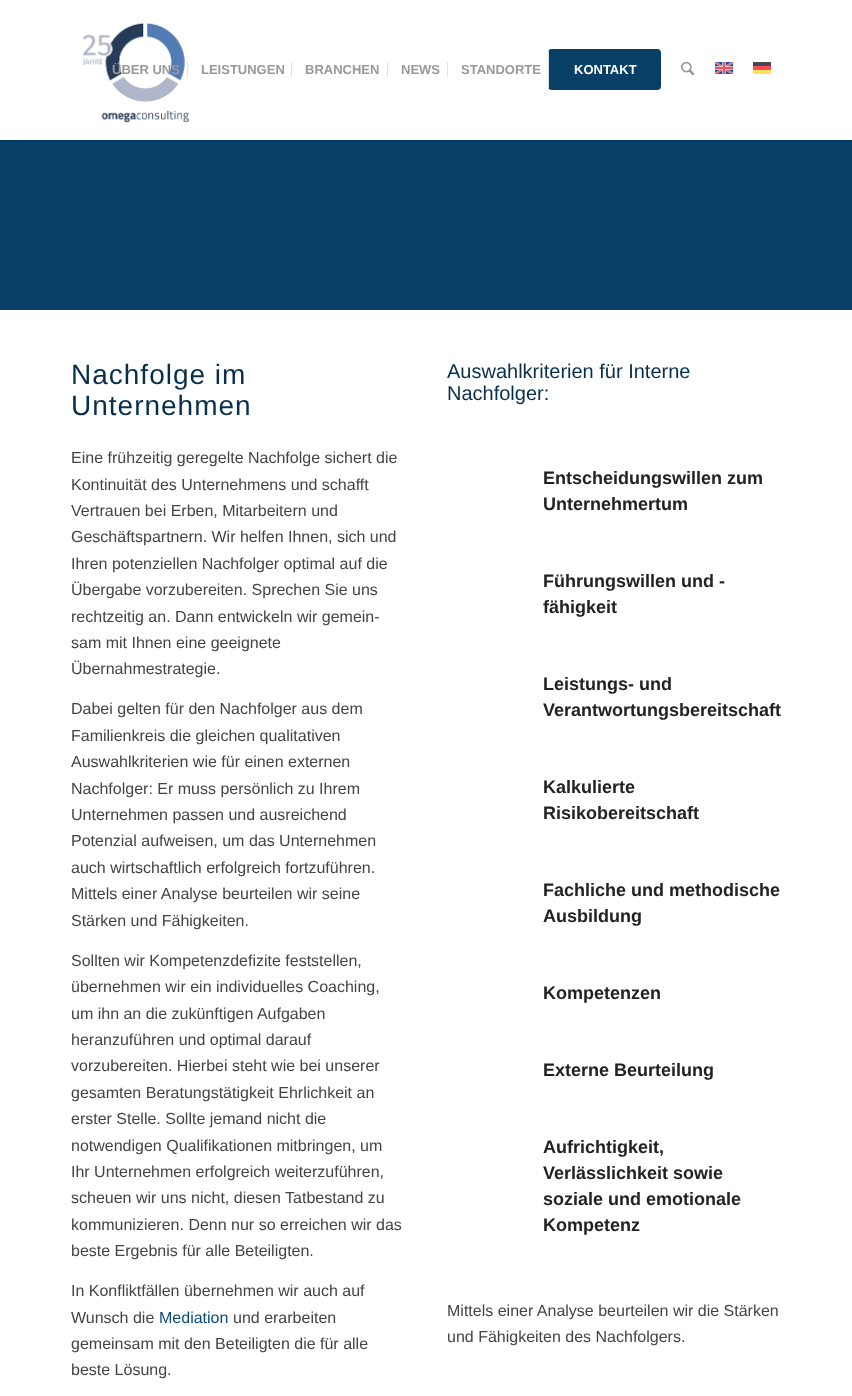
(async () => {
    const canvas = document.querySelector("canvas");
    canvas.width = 852;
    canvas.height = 1396;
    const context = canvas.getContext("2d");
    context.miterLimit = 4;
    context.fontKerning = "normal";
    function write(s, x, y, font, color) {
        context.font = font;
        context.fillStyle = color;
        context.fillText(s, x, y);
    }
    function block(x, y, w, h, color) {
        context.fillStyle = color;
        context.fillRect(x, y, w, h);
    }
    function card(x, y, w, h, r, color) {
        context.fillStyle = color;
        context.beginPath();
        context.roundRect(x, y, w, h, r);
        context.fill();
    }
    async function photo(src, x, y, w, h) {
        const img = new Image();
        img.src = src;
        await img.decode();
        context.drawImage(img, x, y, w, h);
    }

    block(0, 0, 852, 1396, "rgb(255, 255, 255)");
    block(0, 140, 852, 170, "rgb(8, 63, 103)");
    context.fillStyle = "rgba(0, 0, 0, 0.1)";
    context.filter = "blur(1px)";
    context.beginPath();
    context.rect(-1, -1, 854, 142);
    context.fill();
    context.filter = "none";
    block(0, 0, 852, 140, "rgb(255, 255, 255)");
    await photo("media/1.png", 82, 22, 107, 101);
    write("ÜBER UNS", 112, 74, "bold 13px Liberation Sans", "rgb(153, 153, 153)");
    write("LEISTUNGEN", 201, 74, "bold 13px Liberation Sans", "rgb(153, 153, 153)");
    block(187, 62, 1, 15, "rgb(225, 225, 225)");
    write("BRANCHEN", 305, 74, "bold 13px Liberation Sans", "rgb(153, 153, 153)");
    block(291, 62, 1, 15, "rgb(225, 225, 225)");
    write("NEWS", 401, 74, "bold 13px Liberation Sans", "rgb(153, 153, 153)");
    block(387, 62, 1, 15, "rgb(225, 225, 225)");
    write("STANDORTE", 461, 74, "bold 13px Liberation Sans", "rgb(153, 153, 153)");
    block(447, 62, 1, 15, "rgb(225, 225, 225)");
    card(548, 49, 113, 41, 4, "rgb(8, 63, 103)");
    write("KONTAKT", 574, 74, "bold 13px Liberation Sans", "rgb(255, 255, 255)");
    block(548, 51, 1, 37, "rgb(225, 225, 225)");
    await photo("media/2.png", 681, 61, 14, 15);
    await photo("media/3.png", 715, 62, 18, 12);
    block(753, 66, 18, 4, "rgb(255, 75, 85)");
    block(753, 70, 18, 4, "rgb(255, 225, 90)");
    block(753, 62, 18, 4, "rgb(70, 70, 85)");
    context.letterSpacing = "1px";
    write("Nachfolge im", 71, 384, "28px Liberation Sans", "rgb(7, 47, 76)");
    write("Unternehmen", 71, 415, "28px Liberation Sans", "rgb(7, 47, 76)");
    context.letterSpacing = "0px";
    write("Eine frühzeitig geregelte Nachfolge sichert die", 71, 463, "16px Liberation Sans", "rgb(68, 68, 68)");
    write("Kontinuität des Unternehmens und schafft", 71, 490, "16px Liberation Sans", "rgb(68, 68, 68)");
    write("Vertrauen bei Erben, Mitarbeitern und", 71, 516, "16px Liberation Sans", "rgb(68, 68, 68)");
    write("Geschäftspartnern. Wir helfen Ihnen, sich und", 71, 542, "16px Liberation Sans", "rgb(68, 68, 68)");
    write("Ihren potenziellen Nachfolger optimal auf die", 71, 569, "16px Liberation Sans", "rgb(68, 68, 68)");
    write("Übergabe vorzubereiten. Sprechen Sie uns", 71, 595, "16px Liberation Sans", "rgb(68, 68, 68)");
    write("rechtzeitig an. Dann entwickeln wir gemein-", 71, 622, "16px Liberation Sans", "rgb(68, 68, 68)");
    write("sam mit Ihnen eine geeignete", 71, 648, "16px Liberation Sans", "rgb(68, 68, 68)");
    write("Übernahmestrategie.", 71, 674, "16px Liberation Sans", "rgb(68, 68, 68)");
    write("Dabei gelten für den Nachfolger aus dem", 71, 714, "16px Liberation Sans", "rgb(68, 68, 68)");
    write("Familienkreis die gleichen qualitativen", 71, 741, "16px Liberation Sans", "rgb(68, 68, 68)");
    write("Auswahlkriterien wie für einen externen", 71, 767, "16px Liberation Sans", "rgb(68, 68, 68)");
    write("Nachfolger: Er muss persönlich zu Ihrem", 71, 794, "16px Liberation Sans", "rgb(68, 68, 68)");
    write("Unternehmen passen und ausreichend", 71, 820, "16px Liberation Sans", "rgb(68, 68, 68)");
    write("Potenzial aufweisen, um das Unternehmen", 71, 846, "16px Liberation Sans", "rgb(68, 68, 68)");
    write("auch wirtschaftlich erfolgreich fortzuführen.", 71, 873, "16px Liberation Sans", "rgb(68, 68, 68)");
    write("Mittels einer Analyse beurteilen wir seine", 71, 899, "16px Liberation Sans", "rgb(68, 68, 68)");
    write("Stärken und Fähigkeiten.", 71, 926, "16px Liberation Sans", "rgb(68, 68, 68)");
    write("Sollten wir Kompetenzdefizite feststellen,", 71, 966, "16px Liberation Sans", "rgb(68, 68, 68)");
    write("übernehmen wir ein individuelles Coaching,", 71, 992, "16px Liberation Sans", "rgb(68, 68, 68)");
    write("um ihn an die zukünftigen Aufgaben", 71, 1019, "16px Liberation Sans", "rgb(68, 68, 68)");
    write("heranzuführen und optimal darauf", 71, 1045, "16px Liberation Sans", "rgb(68, 68, 68)");
    write("vorzubereiten. Hierbei steht wie bei unserer", 71, 1071, "16px Liberation Sans", "rgb(68, 68, 68)");
    write("gesamten Beratungstätigkeit Ehrlichkeit an", 71, 1098, "16px Liberation Sans", "rgb(68, 68, 68)");
    write("erster Stelle. Sollte jemand nicht die", 71, 1124, "16px Liberation Sans", "rgb(68, 68, 68)");
    write("notwendigen Qualifikationen mitbringen, um", 71, 1151, "16px Liberation Sans", "rgb(68, 68, 68)");
    write("Ihr Unternehmen erfolgreich weiterzuführen,", 71, 1177, "16px Liberation Sans", "rgb(68, 68, 68)");
    write("scheuen wir uns nicht, diesen Tatbestand zu", 71, 1203, "16px Liberation Sans", "rgb(68, 68, 68)");
    write("kommunizieren. Denn nur so erreichen wir das", 71, 1230, "16px Liberation Sans", "rgb(68, 68, 68)");
    write("beste Ergebnis für alle Beteiligten.", 71, 1256, "16px Liberation Sans", "rgb(68, 68, 68)");
    write("In Konfliktfällen übernehmen wir auch auf", 71, 1296, "16px Liberation Sans", "rgb(68, 68, 68)");
    write("Wunsch die", 71, 1323, "16px Liberation Sans", "rgb(68, 68, 68)");
    write("Mediation", 159, 1323, "16px Liberation Sans", "rgb(8, 74, 121)");
    write("und erarbeiten", 233, 1323, "16px Liberation Sans", "rgb(68, 68, 68)");
    write("gemeinsam mit den Beteiligten die für alle", 71, 1349, "16px Liberation Sans", "rgb(68, 68, 68)");
    write("beste Lösung.", 71, 1375, "16px Liberation Sans", "rgb(68, 68, 68)");
    write("Auswahlkriterien für Interne", 447, 378, "20px Liberation Sans", "rgb(7, 47, 76)");
    write("Nachfolger:", 447, 400, "20px Liberation Sans", "rgb(7, 47, 76)");
    write("Entscheidungswillen zum", 543, 484, "bold 18px Liberation Sans", "rgb(34, 34, 34)");
    write("Unternehmertum", 543, 510, "bold 18px Liberation Sans", "rgb(34, 34, 34)");
    write("Führungswillen und -", 543, 587, "bold 18px Liberation Sans", "rgb(34, 34, 34)");
    write("fähigkeit", 543, 613, "bold 18px Liberation Sans", "rgb(34, 34, 34)");
    write("Leistungs- und", 543, 690, "bold 18px Liberation Sans", "rgb(34, 34, 34)");
    write("Verantwortungsbereitschaft", 543, 716, "bold 18px Liberation Sans", "rgb(34, 34, 34)");
    write("Kalkulierte", 543, 793, "bold 18px Liberation Sans", "rgb(34, 34, 34)");
    write("Risikobereitschaft", 543, 819, "bold 18px Liberation Sans", "rgb(34, 34, 34)");
    write("Fachliche und methodische", 543, 896, "bold 18px Liberation Sans", "rgb(34, 34, 34)");
    write("Ausbildung", 543, 922, "bold 18px Liberation Sans", "rgb(34, 34, 34)");
    write("Kompetenzen", 543, 999, "bold 18px Liberation Sans", "rgb(34, 34, 34)");
    write("Externe Beurteilung", 543, 1076, "bold 18px Liberation Sans", "rgb(34, 34, 34)");
    write("Aufrichtigkeit,", 543, 1153, "bold 18px Liberation Sans", "rgb(34, 34, 34)");
    write("Verlässlichkeit sowie", 543, 1179, "bold 18px Liberation Sans", "rgb(34, 34, 34)");
    write("soziale und emotionale", 543, 1205, "bold 18px Liberation Sans", "rgb(34, 34, 34)");
    write("Kompetenz", 543, 1231, "bold 18px Liberation Sans", "rgb(34, 34, 34)");
    write("Mittels einer Analyse beurteilen wir die Stärken", 447, 1316, "16px Liberation Sans", "rgb(68, 68, 68)");
    write("und Fähigkeiten des Nachfolgers.", 447, 1342, "16px Liberation Sans", "rgb(68, 68, 68)");
})();
